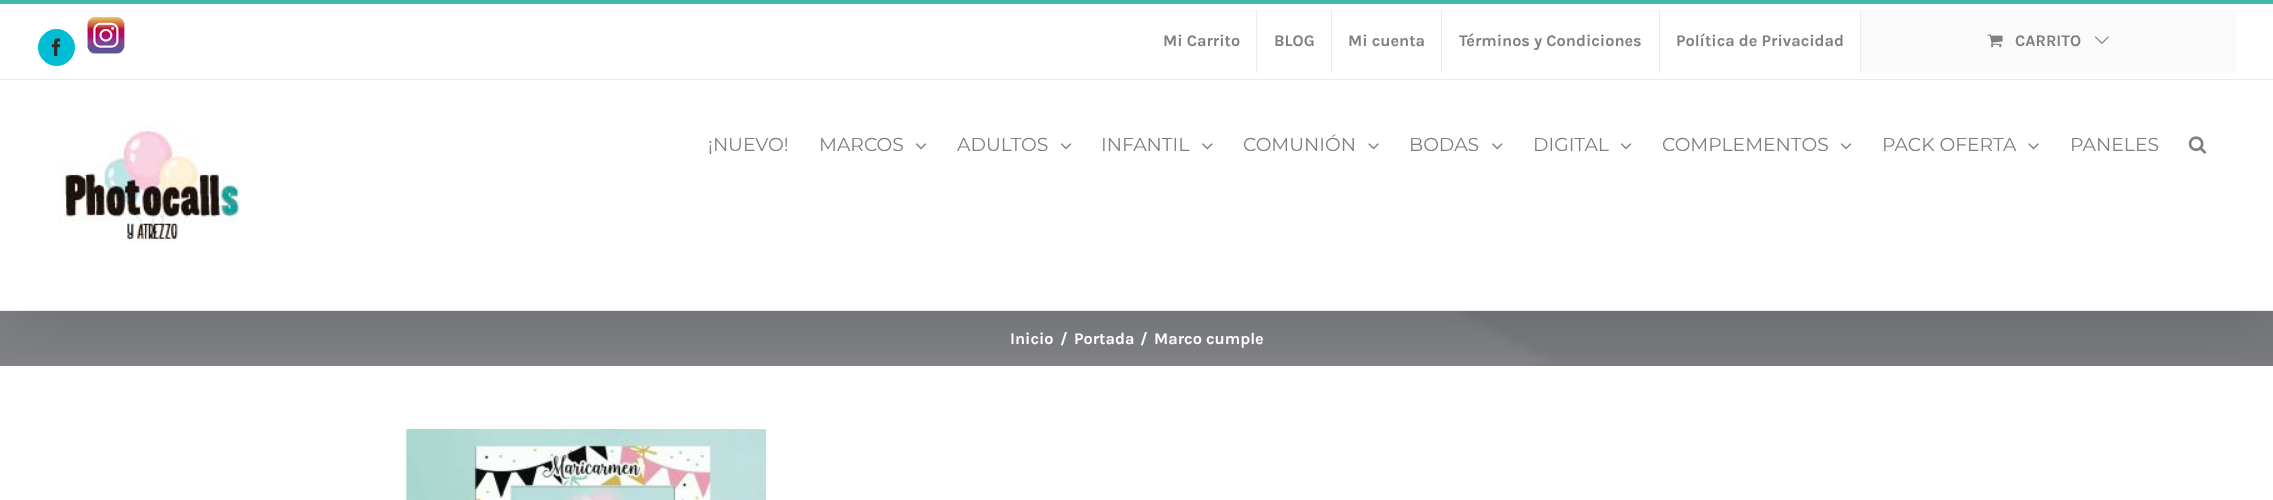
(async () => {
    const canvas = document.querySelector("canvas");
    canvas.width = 2273;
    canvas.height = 500;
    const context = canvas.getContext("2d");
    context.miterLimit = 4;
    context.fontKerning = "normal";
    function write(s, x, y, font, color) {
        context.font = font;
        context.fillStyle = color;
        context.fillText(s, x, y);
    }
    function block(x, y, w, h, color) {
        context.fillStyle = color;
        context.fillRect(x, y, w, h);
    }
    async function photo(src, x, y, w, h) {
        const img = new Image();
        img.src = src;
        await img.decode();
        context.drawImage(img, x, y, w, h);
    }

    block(0, 0, 2273, 500, "rgb(255, 255, 255)");
    await photo("media/10.png", 0, 311, 2273, 55);
    context.save();
    context.beginPath();
    context.rect(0, 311, 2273, 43);
    context.clip();
    context.fillStyle = "rgba(0, 0, 0, 0.14)";
    context.filter = "blur(31px)";
    context.beginPath();
    context.rect(3, 15, 2268, 306);
    context.fill();
    context.filter = "none";
    context.restore();
    block(0, 0, 2273, 4, "rgb(62, 187, 168)");
    block(0, 79, 2273, 1, "rgb(234, 234, 234)");
    context.fillStyle = "rgb(0, 188, 212)";
    context.beginPath();
    context.arc(56.5, 47.5, 18, 0, Math.PI * 2);
    context.fill();
    context.strokeStyle = "rgb(0, 188, 212)";
    context.stroke();
    await photo("media/1.png", 51, 38, 10, 18);
    await photo("media/2.png", 87, 17, 38, 37);
    write("Mi Carrito", 1163, 46, "bold 16.25px Karla", "rgb(127, 127, 127)");
    block(1256, 10, 1, 63, "rgb(234, 234, 234)");
    write("BLOG", 1274, 46, "bold 16.25px Karla", "rgb(127, 127, 127)");
    block(1331, 10, 1, 63, "rgb(234, 234, 234)");
    write("Mi cuenta", 1348, 46, "bold 16.25px Karla", "rgb(127, 127, 127)");
    block(1441, 10, 1, 63, "rgb(234, 234, 234)");
    write("Términos y Condiciones", 1459, 46, "bold 16.25px Karla", "rgb(127, 127, 127)");
    block(1659, 10, 1, 63, "rgb(234, 234, 234)");
    write("Política de Privacidad", 1676, 46, "bold 16.25px Karla", "rgb(127, 127, 127)");
    block(1860, 10, 1, 63, "rgb(234, 234, 234)");
    block(1861, 10, 375, 63, "rgb(250, 250, 250)");
    await photo("media/3.png", 1987, 34, 16, 14);
    write("CARRITO", 2015, 46, "bold 16.25px Karla", "rgb(127, 127, 127)");
    await photo("media/4.png", 2095, 36, 14, 8);
    block(0, 310, 2273, 1, "rgb(234, 234, 234)");
    await photo("media/5.png", 57, 123, 183, 120);
    write("¡NUEVO!", 708, 151, "18.75px Montserrat", "rgb(127, 127, 127)");
    write("MARCOS", 819, 151, "18.75px Montserrat", "rgb(127, 127, 127)");
    await photo("media/6.png", 915, 143, 12, 7);
    write("ADULTOS", 957, 151, "18.75px Montserrat", "rgb(127, 127, 127)");
    await photo("media/6.png", 1060, 143, 12, 7);
    write("INFANTIL", 1101, 151, "18.75px Montserrat", "rgb(127, 127, 127)");
    await photo("media/7.png", 1202, 143, 11, 7);
    write("COMUNIÓN", 1243, 151, "18.75px Montserrat", "rgb(127, 127, 127)");
    await photo("media/8.png", 1368, 143, 11, 7);
    write("BODAS", 1409, 151, "18.75px Montserrat", "rgb(127, 127, 127)");
    await photo("media/7.png", 1492, 143, 11, 7);
    write("DIGITAL", 1533, 151, "18.75px Montserrat", "rgb(127, 127, 127)");
    await photo("media/6.png", 1620, 143, 12, 7);
    write("COMPLEMENTOS", 1662, 151, "18.75px Montserrat", "rgb(127, 127, 127)");
    await photo("media/6.png", 1840, 143, 12, 7);
    write("PACK OFERTA", 1882, 151, "18.75px Montserrat", "rgb(127, 127, 127)");
    await photo("media/8.png", 2028, 143, 11, 7);
    write("PANELES", 2070, 151, "18.75px Montserrat", "rgb(127, 127, 127)");
    await photo("media/9.png", 2188, 136, 19, 18);
    write("Inicio", 1010, 344, "bold 16.25px Karla", "rgb(255, 255, 255)");
    write("/", 1060, 344, "bold 16.25px Karla", "rgb(255, 255, 255)");
    write("Portada", 1074, 344, "bold 16.25px Karla", "rgb(255, 255, 255)");
    write("/", 1140, 344, "bold 16.25px Karla", "rgb(255, 255, 255)");
    write("Marco cumple", 1154, 344, "bold 16.25px Karla", "rgb(255, 255, 255)");
    await photo("media/11.png", 406, 429, 360, 71);
})();
